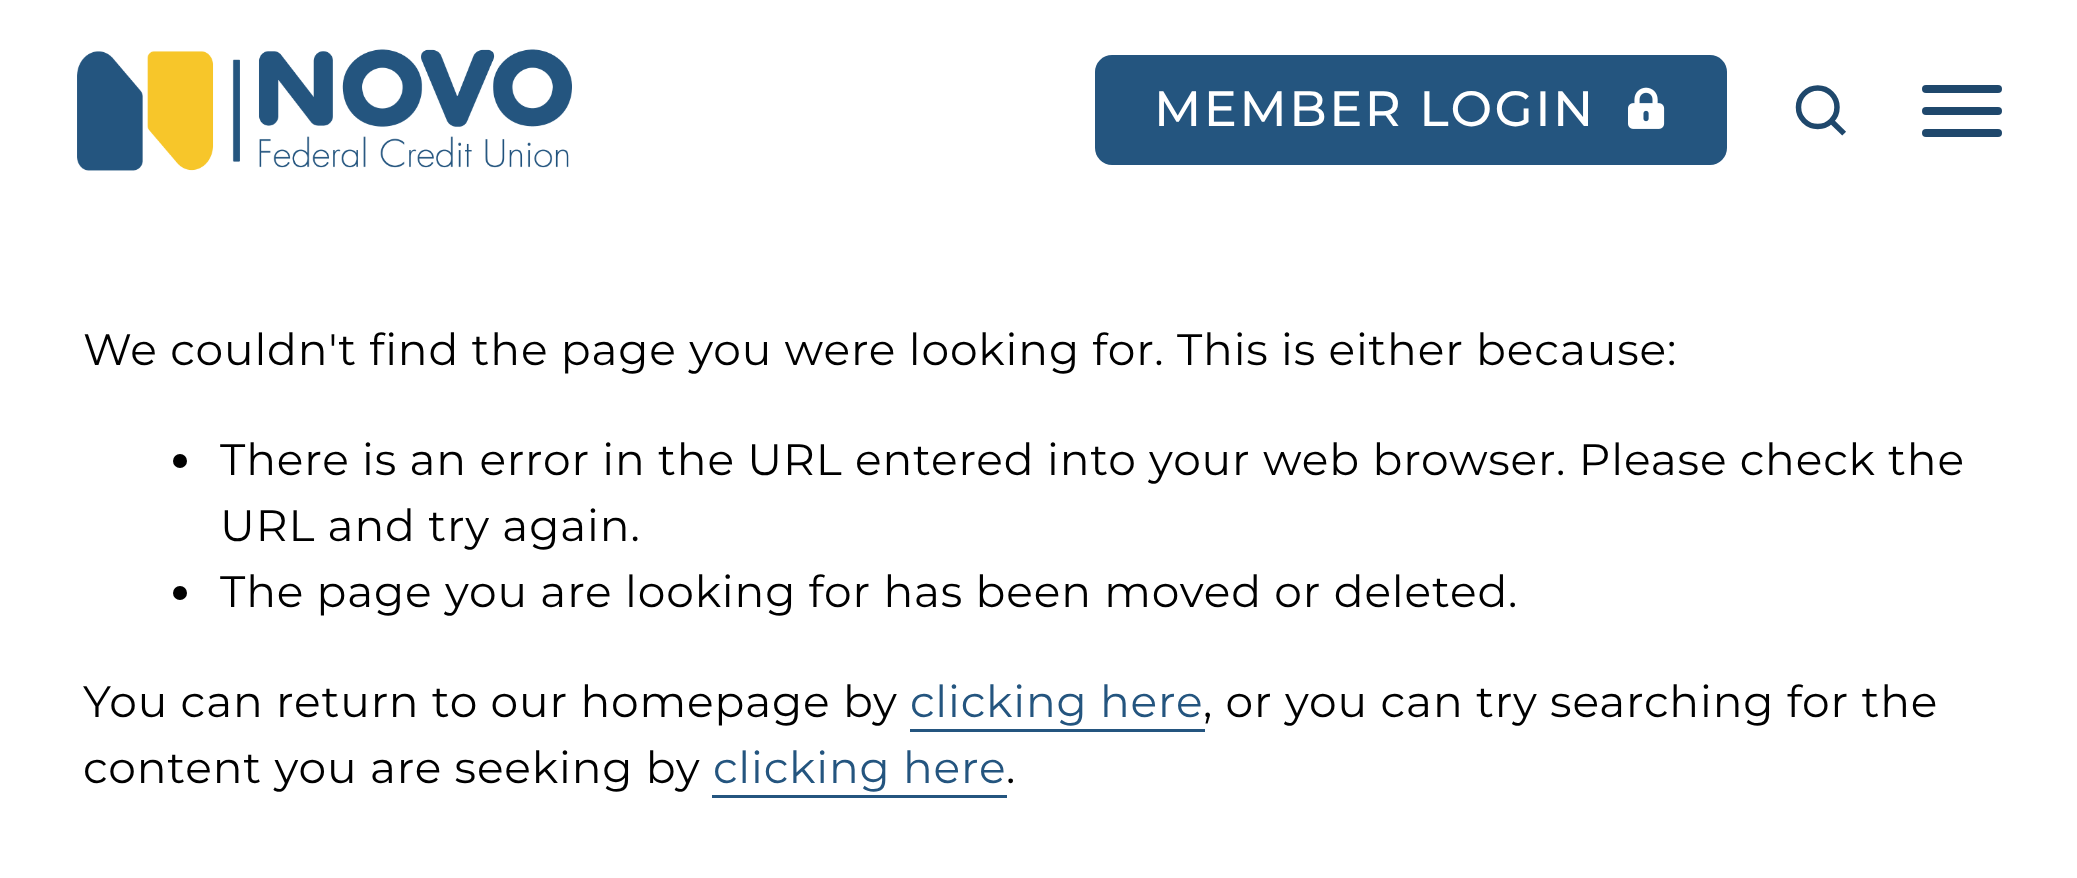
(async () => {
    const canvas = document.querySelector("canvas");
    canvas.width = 2077;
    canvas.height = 878;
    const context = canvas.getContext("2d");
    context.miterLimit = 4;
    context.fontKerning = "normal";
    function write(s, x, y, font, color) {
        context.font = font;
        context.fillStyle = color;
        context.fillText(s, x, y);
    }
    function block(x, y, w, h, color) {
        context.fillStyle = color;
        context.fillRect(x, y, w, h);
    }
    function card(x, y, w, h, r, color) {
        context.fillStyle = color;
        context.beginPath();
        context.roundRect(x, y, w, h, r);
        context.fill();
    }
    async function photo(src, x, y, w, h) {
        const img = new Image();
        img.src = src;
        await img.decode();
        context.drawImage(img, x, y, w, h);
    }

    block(0, 0, 2077, 878, "rgb(255, 255, 255)");
    await photo("media/1.png", 77, 49, 495, 122);
    card(1095, 55, 632, 110, 17, "rgb(36, 85, 127)");
    context.letterSpacing = "2.5px";
    write("MEMBER LOGIN", 1154, 126, "500 49.5px Montserrat", "rgb(255, 255, 255)");
    await photo("media/2.png", 1628, 87, 37, 42);
    await photo("media/3.png", 1795, 85, 51, 51);
    card(1922, 107, 80, 8, 4, "rgb(31, 72, 108)");
    card(1922, 85, 80, 8, 4, "rgb(31, 72, 108)");
    card(1922, 129, 80, 8, 4, "rgb(31, 72, 108)");
    context.letterSpacing = "0.88px";
    write("We couldn't find the page you were looking for. This is either because:", 83, 365, "44px Montserrat", "rgb(0, 0, 0)");
    context.beginPath();
    context.arc(180, 461, 7, 0, Math.PI * 2);
    context.fill();
    write("There is an error in the URL entered into your web browser. Please check the", 220, 475, "44px Montserrat", "rgb(0, 0, 0)");
    write("URL and try again.", 220, 541, "44px Montserrat", "rgb(0, 0, 0)");
    context.beginPath();
    context.arc(180, 593, 7, 0, Math.PI * 2);
    context.fill();
    write("The page you are looking for has been moved or deleted.", 220, 607, "44px Montserrat", "rgb(0, 0, 0)");
    write("You can return to our homepage by", 83, 717, "44px Montserrat", "rgb(0, 0, 0)");
    write("clicking here", 910, 717, "44px Montserrat", "rgb(36, 85, 127)");
    block(910, 729, 295, 3, "rgb(36, 85, 127)");
    write(", or you can try searching for the", 1203, 717, "44px Montserrat", "rgb(0, 0, 0)");
    write("content you are seeking by", 83, 783, "44px Montserrat", "rgb(0, 0, 0)");
    write("clicking here", 713, 783, "44px Montserrat", "rgb(36, 85, 127)");
    block(712, 795, 295, 3, "rgb(36, 85, 127)");
    write(".", 1006, 783, "44px Montserrat", "rgb(0, 0, 0)");
})();
